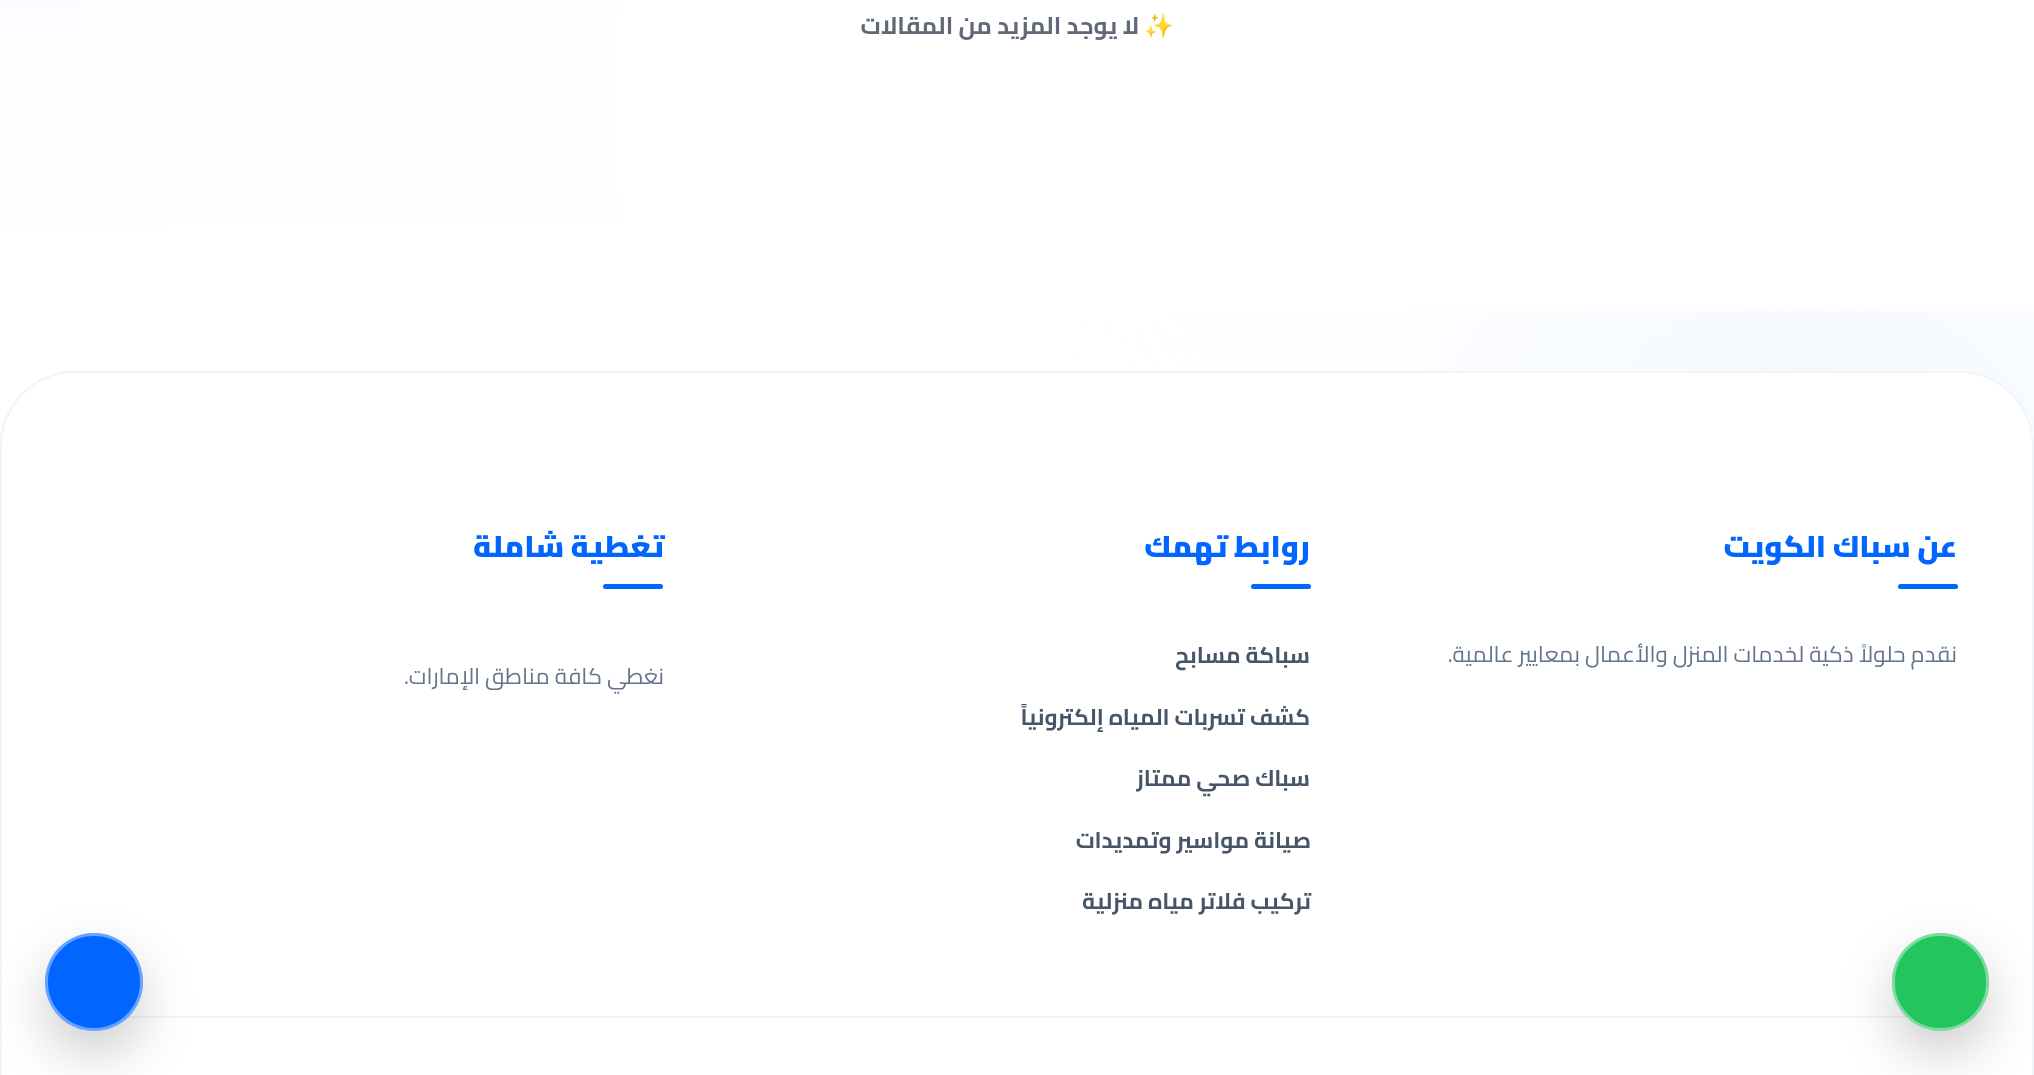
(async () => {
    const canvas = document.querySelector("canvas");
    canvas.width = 2034;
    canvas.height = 1075;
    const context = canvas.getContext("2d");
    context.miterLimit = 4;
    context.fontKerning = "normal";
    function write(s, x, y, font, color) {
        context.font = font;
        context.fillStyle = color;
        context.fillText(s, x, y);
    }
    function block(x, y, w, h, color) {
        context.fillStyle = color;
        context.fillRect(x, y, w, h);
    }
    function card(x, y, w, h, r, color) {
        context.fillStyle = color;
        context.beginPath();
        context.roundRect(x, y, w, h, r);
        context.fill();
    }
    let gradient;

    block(0, 0, 2034, 1075, "rgb(255, 255, 255)");
    gradient = context.createRadialGradient(0, -1114.83, 0, 0, -1114.83, 2877);
    gradient.addColorStop(0, "rgb(241, 247, 255)");
    gradient.addColorStop(0.5, "rgb(254, 254, 255)");
    context.fillStyle = gradient;
    context.beginPath();
    context.rect(0, 0, 618, 225);
    context.save();
    context.clip();
    context.scale(1, 4111 / 2877);
    context.fillRect(0, 0, 2034, 753);
    context.restore();
    context.save();
    context.beginPath();
    context.rect(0, 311, 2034, 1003);
    context.clip();
    context.fillStyle = "rgb(243, 248, 255)";
    context.filter = "blur(180px)";
    context.beginPath();
    context.roundRect(1434, 161, 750, 750, 375);
    context.fill();
    context.filter = "none";
    context.restore();
    card(87, -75, 1860, 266, 75, "rgba(255, 255, 255, 0.65)");
    context.direction = "rtl";
    write("✨", 1174, 34, "bold 24px Noto Color Emoji", "rgb(97, 105, 118)");
    write("لا يوجد المزيد من المقالات", 1139, 34, "bold 24px Cairo", "rgb(97, 105, 118)");
    context.fillStyle = "rgb(255, 255, 255)";
    context.beginPath();
    context.roundRect(1, 372, 2032, 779, 74);
    context.fill();
    context.strokeStyle = "rgb(241, 245, 249)";
    context.lineWidth = 2;
    context.stroke();
    write("عن سباك الكويت", 1957, 557, "900 30px Cairo", "rgb(0, 102, 255)");
    card(1898, 584, 60, 5, 2.5, "rgb(0, 102, 255)");
    write("نقدم حلولاً ذكية لخدمات المنزل والأعمال بمعايير عالمية.", 1957, 662, "22.5px Cairo", "rgb(100, 116, 139)");
    write("روابط تهمك", 1310, 557, "900 30px Cairo", "rgb(0, 102, 255)");
    card(1251, 584, 60, 5, 2.5, "rgb(0, 102, 255)");
    write("سباكة مسابح", 1310, 663, "bold 22.5px Cairo", "rgb(71, 85, 105)");
    write("كشف تسربات المياه إلكترونياً", 1310, 725, "bold 22.5px Cairo", "rgb(71, 85, 105)");
    write("سباك صحي ممتاز", 1310, 786, "bold 22.5px Cairo", "rgb(71, 85, 105)");
    write("صيانة مواسير وتمديدات", 1311, 848, "bold 22.5px Cairo", "rgb(71, 85, 105)");
    write("تركيب فلاتر مياه منزلية", 1311, 909, "bold 22.5px Cairo", "rgb(71, 85, 105)");
    write("تغطية شاملة", 664, 557, "900 30px Cairo", "rgb(0, 102, 255)");
    card(603, 584, 60, 5, 2.5, "rgb(0, 102, 255)");
    write("نغطي كافة مناطق الإمارات.", 664, 684, "22.5px Cairo", "rgb(100, 116, 139)");
    block(127, 1016, 1781, 2, "rgb(241, 245, 249)");
    context.fillStyle = "rgba(0, 0, 0, 0.2)";
    context.filter = "blur(26px)";
    context.beginPath();
    context.roundRect(1892, 956, 97, 97, 48.5);
    context.fill();
    context.filter = "none";
    card(1892, 933, 97, 98, 48.5, "rgb(34, 197, 94)");
    context.beginPath();
    context.roundRect(1893.5, 934.5, 94, 95, 47);
    context.strokeStyle = "rgba(255, 255, 255, 0.4)";
    context.lineWidth = 3;
    context.stroke();
    context.fillStyle = "rgba(0, 0, 0, 0.2)";
    context.filter = "blur(26px)";
    context.beginPath();
    context.roundRect(45, 956, 98, 97, 48.5);
    context.fill();
    context.filter = "none";
    context.fillStyle = "rgb(0, 102, 255)";
    context.beginPath();
    context.arc(94, 982, 49, 0, Math.PI * 2);
    context.fill();
    context.beginPath();
    context.arc(94, 982, 47.5, 0, Math.PI * 2);
    context.stroke();
})();
